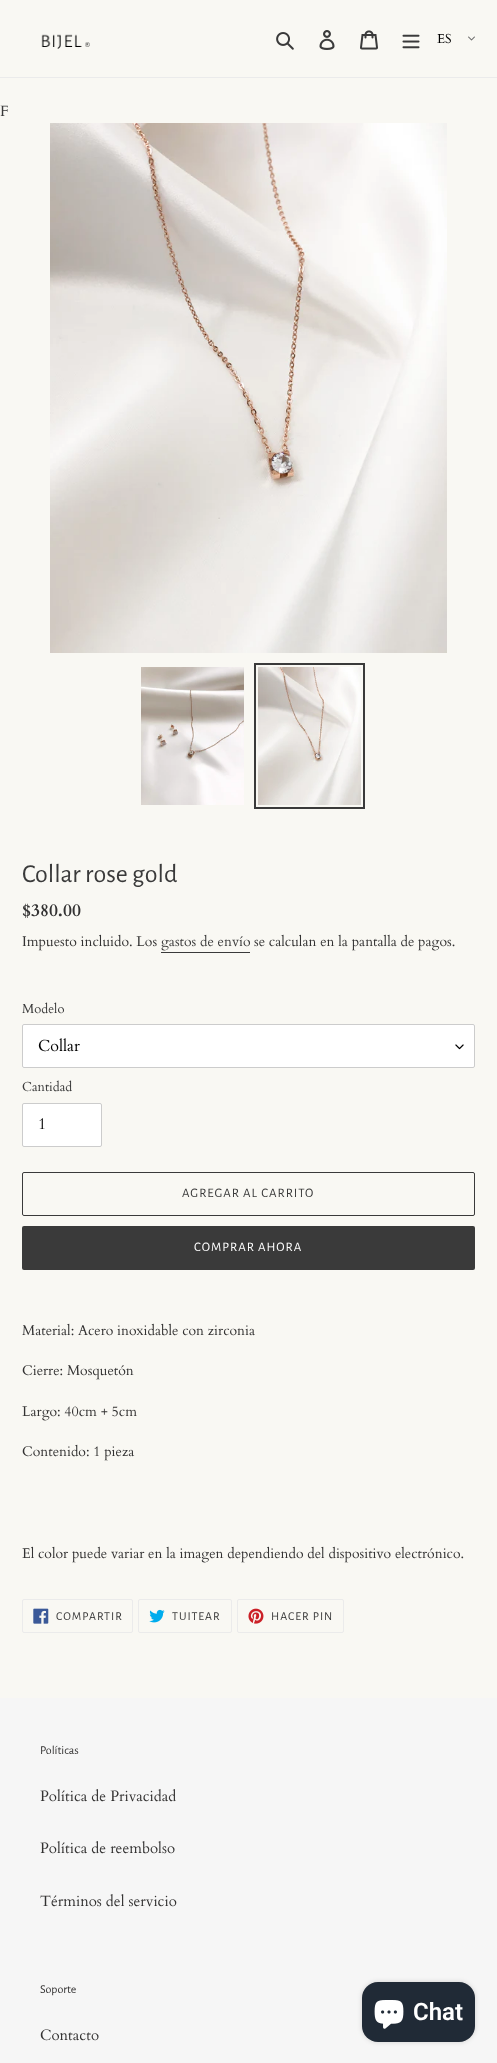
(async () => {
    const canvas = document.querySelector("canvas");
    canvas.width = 497;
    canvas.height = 2063;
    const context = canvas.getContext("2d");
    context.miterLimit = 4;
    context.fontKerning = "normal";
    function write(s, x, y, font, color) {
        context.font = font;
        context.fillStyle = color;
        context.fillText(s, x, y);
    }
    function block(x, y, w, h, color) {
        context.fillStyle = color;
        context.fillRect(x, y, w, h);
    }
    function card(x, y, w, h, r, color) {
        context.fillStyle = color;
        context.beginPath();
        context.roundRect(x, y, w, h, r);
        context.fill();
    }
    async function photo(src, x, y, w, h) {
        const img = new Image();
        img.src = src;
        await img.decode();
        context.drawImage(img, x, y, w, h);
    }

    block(0, 0, 497, 2063, "rgb(249, 248, 243)");
    block(0, 77, 497, 1, "rgb(235, 235, 235)");
    await photo("media/1.png", 41, 34, 49, 15);
    await photo("media/2.png", 276, 32, 18, 18);
    await photo("media/3.png", 319, 30, 16, 20);
    await photo("media/4.png", 360, 30, 18, 20);
    await photo("media/5.png", 402, 34, 18, 15);
    write("ES", 437, 43, "13px Cardo", "rgb(0, 0, 0)");
    await photo("media/6.png", 468, 36, 7, 5);
    write("F", 0, 116, "15px Cardo", "rgb(58, 58, 58)");
    await photo("media/7.png", 50, 123, 397, 530);
    await photo("media/8.png", 141, 667, 103, 138);
    context.strokeStyle = "rgb(58, 58, 58)";
    context.lineWidth = 2;
    context.strokeRect(255, 664, 109, 144);
    await photo("media/9.png", 258, 667, 103, 138);
    write("Collar rose gold", 22, 882, "26px Alegreya Sans", "rgb(58, 58, 58)");
    write("$380.00", 22, 916, "bold 17.5px Cardo", "rgb(51, 50, 50)");
    write("Impuesto incluido. Los", 22, 946, "14px Cardo", "rgb(51, 50, 50)");
    write("gastos de envío", 161, 946, "14px Cardo", "rgb(58, 58, 58)");
    block(161, 952, 89, 1, "rgb(58, 58, 58)");
    write("se calculan en la pantalla de pagos.", 254, 946, "14px Cardo", "rgb(51, 50, 50)");
    write("Modelo", 22, 1013, "13px Cardo", "rgb(58, 58, 58)");
    card(22, 1024, 453, 44, 2, "rgb(255, 255, 255)");
    await photo("media/10.png", 455, 1044, 9, 6);
    context.beginPath();
    context.roundRect(22.5, 1024.5, 452, 43, 1.5);
    context.strokeStyle = "rgb(204, 204, 204)";
    context.lineWidth = 1;
    context.stroke();
    write("Collar", 38, 1051, "16px Cardo", "rgb(0, 0, 0)");
    write("Cantidad", 22, 1091, "13px Cardo", "rgb(58, 58, 58)");
    context.fillStyle = "rgb(255, 255, 255)";
    context.beginPath();
    context.roundRect(22.5, 1103.5, 79, 43, 1.5);
    context.fill();
    context.stroke();
    write("1", 38, 1129, "16px Cardo", "rgb(0, 0, 0)");
    context.beginPath();
    context.roundRect(22.5, 1172.5, 452, 43, 1.5);
    context.strokeStyle = "rgb(58, 58, 58)";
    context.stroke();
    context.letterSpacing = "1px";
    write("AGREGAR AL CARRITO", 182, 1197, "13px Alegreya Sans", "rgb(58, 58, 58)");
    card(22, 1226, 453, 44, 2, "rgb(58, 58, 58)");
    write("COMPRAR AHORA", 194, 1251, "13px Alegreya Sans", "rgb(255, 255, 255)");
    context.letterSpacing = "0px";
    write("Material: Acero inoxidable con zirconia", 22, 1335, "14px Cardo", "rgb(51, 50, 50)");
    write("Cierre: Mosquetón", 22, 1375, "14px Cardo", "rgb(51, 50, 50)");
    write("Largo: 40cm + 5cm", 22, 1416, "14px Cardo", "rgb(51, 50, 50)");
    write("Contenido: 1 pieza", 22, 1456, "14px Cardo", "rgb(51, 50, 50)");
    write("El color puede variar en la imagen dependiendo del dispositivo electrónico.", 22, 1558, "14px Cardo", "rgb(51, 50, 50)");
    context.beginPath();
    context.roundRect(22.5, 1599.5, 110, 33, 1.5);
    context.strokeStyle = "rgb(235, 235, 235)";
    context.stroke();
    await photo("media/11.png", 33, 1608, 16, 16);
    context.letterSpacing = "1px";
    write("COMPARTIR", 56, 1620, "12px Alegreya Sans", "rgb(58, 58, 58)");
    context.beginPath();
    context.roundRect(138.5, 1599.5, 93, 33, 1.5);
    context.stroke();
    await photo("media/12.png", 149, 1609, 16, 14);
    write("TUITEAR", 172, 1620, "12px Alegreya Sans", "rgb(58, 58, 58)");
    context.beginPath();
    context.roundRect(237.5, 1599.5, 106, 33, 1.5);
    context.stroke();
    await photo("media/13.png", 248, 1608, 16, 16);
    write("HACER PIN", 271, 1620, "12px Alegreya Sans", "rgb(58, 58, 58)");
    block(0, 1698, 497, 365, "rgb(246, 246, 246)");
    context.letterSpacing = "0px";
    write("Políticas", 40, 1754, "12px Alegreya Sans", "rgb(51, 50, 50)");
    write("Política de Privacidad", 40, 1801, "15px Cardo", "rgb(51, 50, 50)");
    write("Política de reembolso", 40, 1853, "15px Cardo", "rgb(51, 50, 50)");
    write("Términos del servicio", 40, 1906, "15px Cardo", "rgb(51, 50, 50)");
    write("Soporte", 40, 1993, "12px Alegreya Sans", "rgb(51, 50, 50)");
    write("Contacto", 40, 2040, "15px Cardo", "rgb(51, 50, 50)");
    context.fillStyle = "rgba(0, 0, 0, 0.15)";
    context.filter = "blur(2.5px)";
    context.beginPath();
    context.roundRect(362, 1982, 113, 60, 16);
    context.fill();
    context.filter = "none";
    card(362, 1982, 113, 60, 16, "rgb(32, 42, 54)");
    await photo("media/14.png", 374, 2000, 30, 29);
    write("Chat", 413, 2020, "600 24px Roboto", "rgb(255, 255, 255)");
})();
